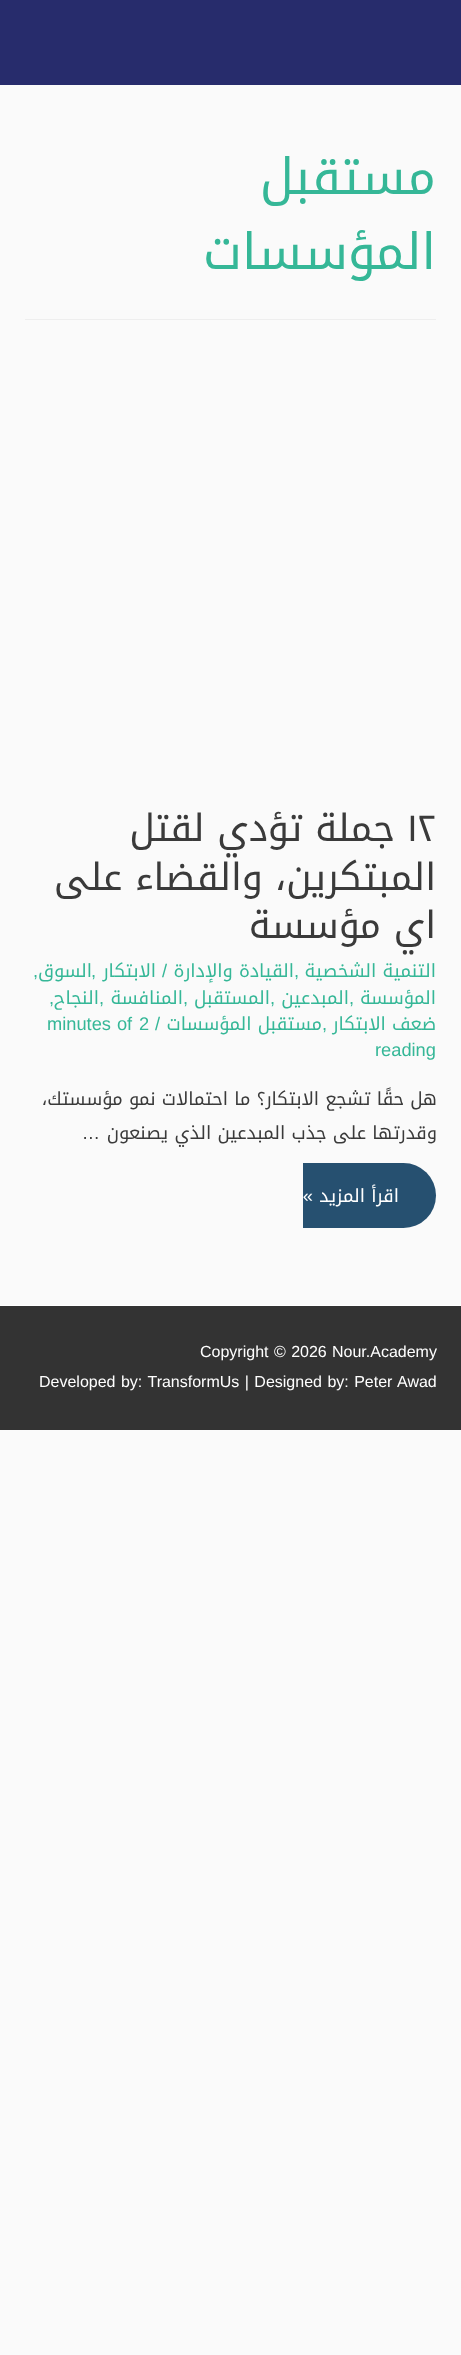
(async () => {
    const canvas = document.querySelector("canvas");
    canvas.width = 461;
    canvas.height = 2355;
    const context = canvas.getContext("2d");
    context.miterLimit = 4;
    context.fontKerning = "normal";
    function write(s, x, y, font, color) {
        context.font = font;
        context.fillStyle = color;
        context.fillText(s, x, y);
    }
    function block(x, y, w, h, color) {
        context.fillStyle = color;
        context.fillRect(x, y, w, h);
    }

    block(0, 0, 461, 2355, "rgb(250, 250, 250)");
    block(0, 0, 461, 85, "rgb(39, 44, 108)");
    block(25, 319, 411, 1, "rgb(238, 238, 238)");
    context.direction = "rtl";
    write("مستقبل", 436, 194, "50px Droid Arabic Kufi", "rgb(53, 183, 151)");
    write("المؤسسات", 436, 269, "50px Droid Arabic Kufi", "rgb(53, 183, 151)");
    context.direction = "ltr";
    write("١٢", 407, 841, "37.5px Droid Arabic Kufi", "rgb(58, 58, 58)");
    context.direction = "rtl";
    write("جملة تؤدي لقتل", 395, 841, "37.5px Droid Arabic Kufi", "rgb(58, 58, 58)");
    write("المبتكرين، والقضاء على", 436, 890, "37.5px Droid Arabic Kufi", "rgb(58, 58, 58)");
    write("اي مؤسسة", 436, 938, "37.5px Droid Arabic Kufi", "rgb(58, 58, 58)");
    write("التنمية الشخصية", 436, 977, "18.25px Droid Arabic Kufi", "rgb(53, 183, 151)");
    context.direction = "ltr";
    write(",", 294, 977, "18.25px Liberation Sans", "rgb(53, 183, 151)");
    context.direction = "rtl";
    write("القيادة والإدارة", 294, 977, "18.25px Droid Arabic Kufi", "rgb(53, 183, 151)");
    context.direction = "ltr";
    write("/", 162, 977, "18.25px Liberation Sans", "rgb(53, 183, 151)");
    context.direction = "rtl";
    write("الابتكار", 156, 977, "18.25px Droid Arabic Kufi", "rgb(53, 183, 151)");
    context.direction = "ltr";
    write(",", 91, 977, "18.25px Liberation Sans", "rgb(53, 183, 151)");
    context.direction = "rtl";
    write("السوق", 92, 977, "18.25px Droid Arabic Kufi", "rgb(53, 183, 151)");
    context.direction = "ltr";
    write(",", 33, 977, "18.25px Liberation Sans", "rgb(53, 183, 151)");
    context.direction = "rtl";
    write("المؤسسة", 436, 1004, "18.25px Droid Arabic Kufi", "rgb(53, 183, 151)");
    context.direction = "ltr";
    write(",", 349, 1004, "18.25px Liberation Sans", "rgb(53, 183, 151)");
    context.direction = "rtl";
    write("المبدعين", 349, 1004, "18.25px Droid Arabic Kufi", "rgb(53, 183, 151)");
    context.direction = "ltr";
    write(",", 270, 1004, "18.25px Liberation Sans", "rgb(53, 183, 151)");
    context.direction = "rtl";
    write("المستقبل", 270, 1004, "18.25px Droid Arabic Kufi", "rgb(53, 183, 151)");
    context.direction = "ltr";
    write(",", 183, 1004, "18.25px Liberation Sans", "rgb(53, 183, 151)");
    context.direction = "rtl";
    write("المنافسة", 183, 1004, "18.25px Droid Arabic Kufi", "rgb(53, 183, 151)");
    context.direction = "ltr";
    write(",", 99, 1004, "18.25px Liberation Sans", "rgb(53, 183, 151)");
    context.direction = "rtl";
    write("النجاح", 99, 1004, "18.25px Droid Arabic Kufi", "rgb(53, 183, 151)");
    context.direction = "ltr";
    write(",", 49, 1004, "18.25px Liberation Sans", "rgb(53, 183, 151)");
    context.direction = "rtl";
    write("ضعف الابتكار", 436, 1030, "18.25px Droid Arabic Kufi", "rgb(53, 183, 151)");
    write("مستقبل المؤسسات", 322, 1030, "18.25px Droid Arabic Kufi", "rgb(53, 183, 151)");
    context.direction = "ltr";
    write("/", 155, 1030, "18.25px Liberation Sans", "rgb(53, 183, 151)");
    write("2", 139, 1030, "18.25px Liberation Sans", "rgb(53, 183, 151)");
    context.wordSpacing = "1px";
    write("minutes of", 47, 1030, "18.25px Liberation Sans", "rgb(53, 183, 151)");
    context.wordSpacing = "0px";
    write(",", 322, 1030, "18.25px Liberation Sans", "rgb(53, 183, 151)");
    write("reading", 375, 1056, "18.25px Liberation Sans", "rgb(53, 183, 151)");
    context.direction = "rtl";
    write("هل حقًا تشجع الابتكار؟ ما احتمالات نمو مؤسستك،", 437, 1105, "18.25px Droid Arabic Kufi", "rgb(58, 58, 58)");
    write("وقدرتها على جذب المبدعين الذي يصنعون", 437, 1139, "18.25px Droid Arabic Kufi", "rgb(58, 58, 58)");
    write("…", 100, 1139, "18.25px Liberation Sans", "rgb(58, 58, 58)");
    context.fillStyle = "rgb(38, 80, 112)";
    context.beginPath();
    context.roundRect(303, 1163, 133, 65, [0, 32.5, 32.5, 0]);
    context.fill();
    write("اقرأ المزيد", 399, 1202, "18.25px Droid Arabic Kufi", "rgb(255, 255, 255)");
    write("»", 313, 1202, "18.25px Liberation Sans", "rgb(255, 255, 255)");
    block(0, 1305, 461, 1, "rgb(255, 255, 255)");
    block(0, 1306, 461, 124, "rgb(51, 51, 51)");
    context.direction = "ltr";
    write("Nour.Academy", 332, 1357, "16px Liberation Sans", "rgb(255, 255, 255)");
    context.wordSpacing = "1px";
    write("Copyright © 2026", 200, 1357, "16px Liberation Sans", "rgb(255, 255, 255)");
    write("Developed by: TransformUs | Designed by: Peter Awad", 39, 1387, "16px Liberation Sans", "rgb(255, 255, 255)");
})();
